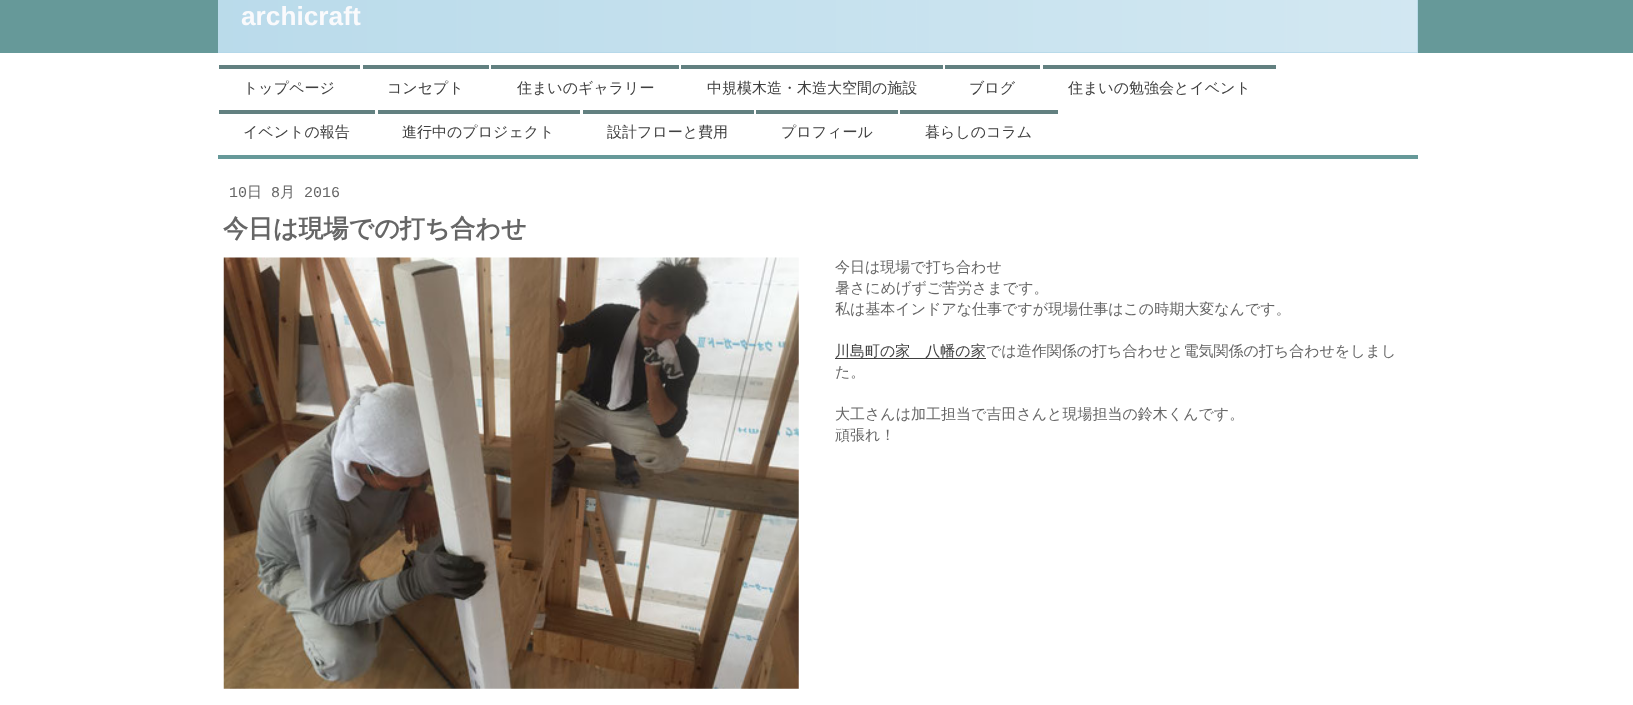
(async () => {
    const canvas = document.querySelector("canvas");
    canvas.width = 1633;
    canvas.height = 705;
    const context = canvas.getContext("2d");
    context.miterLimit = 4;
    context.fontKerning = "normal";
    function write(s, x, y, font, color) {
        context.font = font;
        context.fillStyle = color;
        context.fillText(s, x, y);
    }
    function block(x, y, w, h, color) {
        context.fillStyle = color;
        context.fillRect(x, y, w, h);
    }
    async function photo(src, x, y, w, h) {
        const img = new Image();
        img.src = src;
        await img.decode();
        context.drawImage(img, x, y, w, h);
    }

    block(0, 0, 1633, 705, "rgb(255, 255, 255)");
    block(0, 0, 1633, 53, "rgb(102, 153, 153)");
    block(218, 0, 1200, 53, "rgb(180, 216, 233)");
    await photo("media/1.png", 218, 0, 1200, 53);
    write("archicraft", 241, 25, "bold 26.25px Liberation Sans", "rgb(250, 250, 252)");
    block(219, 65, 141, 4, "rgb(98, 128, 128)");
    write("トップページ", 243, 93, "500 15px WenQuanYi Zen Hei", "rgb(64, 64, 64)");
    block(363, 65, 126, 4, "rgb(98, 128, 128)");
    write("コンセプト", 387, 93, "500 15px WenQuanYi Zen Hei", "rgb(64, 64, 64)");
    block(491, 65, 188, 4, "rgb(98, 128, 128)");
    write("住まいのギャラリー", 517, 93, "500 15px WenQuanYi Zen Hei", "rgb(64, 64, 64)");
    block(681, 65, 262, 4, "rgb(98, 128, 128)");
    write("中規模木造・木造大空間の施設", 707, 93, "500 15px WenQuanYi Zen Hei", "rgb(64, 64, 64)");
    block(945, 65, 95, 4, "rgb(98, 128, 128)");
    write("ブログ", 969, 93, "500 15px WenQuanYi Zen Hei", "rgb(64, 64, 64)");
    block(1043, 65, 233, 4, "rgb(98, 128, 128)");
    write("住まいの勉強会とイベント", 1068, 93, "500 15px WenQuanYi Zen Hei", "rgb(64, 64, 64)");
    block(219, 110, 156, 4, "rgb(98, 128, 128)");
    write("イベントの報告", 243, 137, "500 15px WenQuanYi Zen Hei", "rgb(64, 64, 64)");
    block(378, 110, 202, 4, "rgb(98, 128, 128)");
    write("進行中のプロジェクト", 402, 137, "500 15px WenQuanYi Zen Hei", "rgb(64, 64, 64)");
    block(583, 110, 171, 4, "rgb(98, 128, 128)");
    write("設計フローと費用", 607, 137, "500 15px WenQuanYi Zen Hei", "rgb(64, 64, 64)");
    block(756, 110, 142, 4, "rgb(98, 128, 128)");
    write("プロフィール", 781, 137, "500 15px WenQuanYi Zen Hei", "rgb(64, 64, 64)");
    block(900, 110, 158, 4, "rgb(98, 128, 128)");
    write("暮らしのコラム", 925, 137, "500 15px WenQuanYi Zen Hei", "rgb(64, 64, 64)");
    block(218, 155, 1200, 4, "rgb(102, 153, 153)");
    write("10", 229, 197, "15px Liberation Mono", "rgb(102, 102, 102)");
    write("日", 247, 197, "500 15px WenQuanYi Zen Hei", "rgb(102, 102, 102)");
    write("8", 271, 197, "15px Liberation Mono", "rgb(102, 102, 102)");
    write("月", 280, 197, "500 15px WenQuanYi Zen Hei", "rgb(102, 102, 102)");
    write("2016", 304, 197, "15px Liberation Mono", "rgb(102, 102, 102)");
    write("今日は現場での打ち合わせ", 223, 237, "bold 25px WenQuanYi Zen Hei", "rgb(102, 102, 102)");
    await photo("media/2.png", 223, 257, 576, 432);
    write("今日は現場で打ち合わせ", 835, 272, "500 15px WenQuanYi Zen Hei", "rgb(102, 102, 102)");
    write("暑さにめげずご苦労さまです。", 835, 293, "500 15px WenQuanYi Zen Hei", "rgb(102, 102, 102)");
    write("私は基本インドアな仕事ですが現場仕事はこの時期大変なんです。", 835, 314, "500 15px WenQuanYi Zen Hei", "rgb(102, 102, 102)");
    block(835, 358, 151, 1, "rgb(64, 64, 64)");
    write("川島町の家　八幡の家", 835, 356, "500 15px WenQuanYi Zen Hei", "rgb(64, 64, 64)");
    write("では造作関係の打ち合わせと電気関係の打ち合わせをしまし", 986, 356, "500 15px WenQuanYi Zen Hei", "rgb(102, 102, 102)");
    write("た。", 835, 377, "500 15px WenQuanYi Zen Hei", "rgb(102, 102, 102)");
    write("大工さんは加工担当で吉田さんと現場担当の鈴木くんです。", 835, 419, "500 15px WenQuanYi Zen Hei", "rgb(102, 102, 102)");
    write("頑張れ！", 835, 440, "500 15px WenQuanYi Zen Hei", "rgb(102, 102, 102)");
})();
